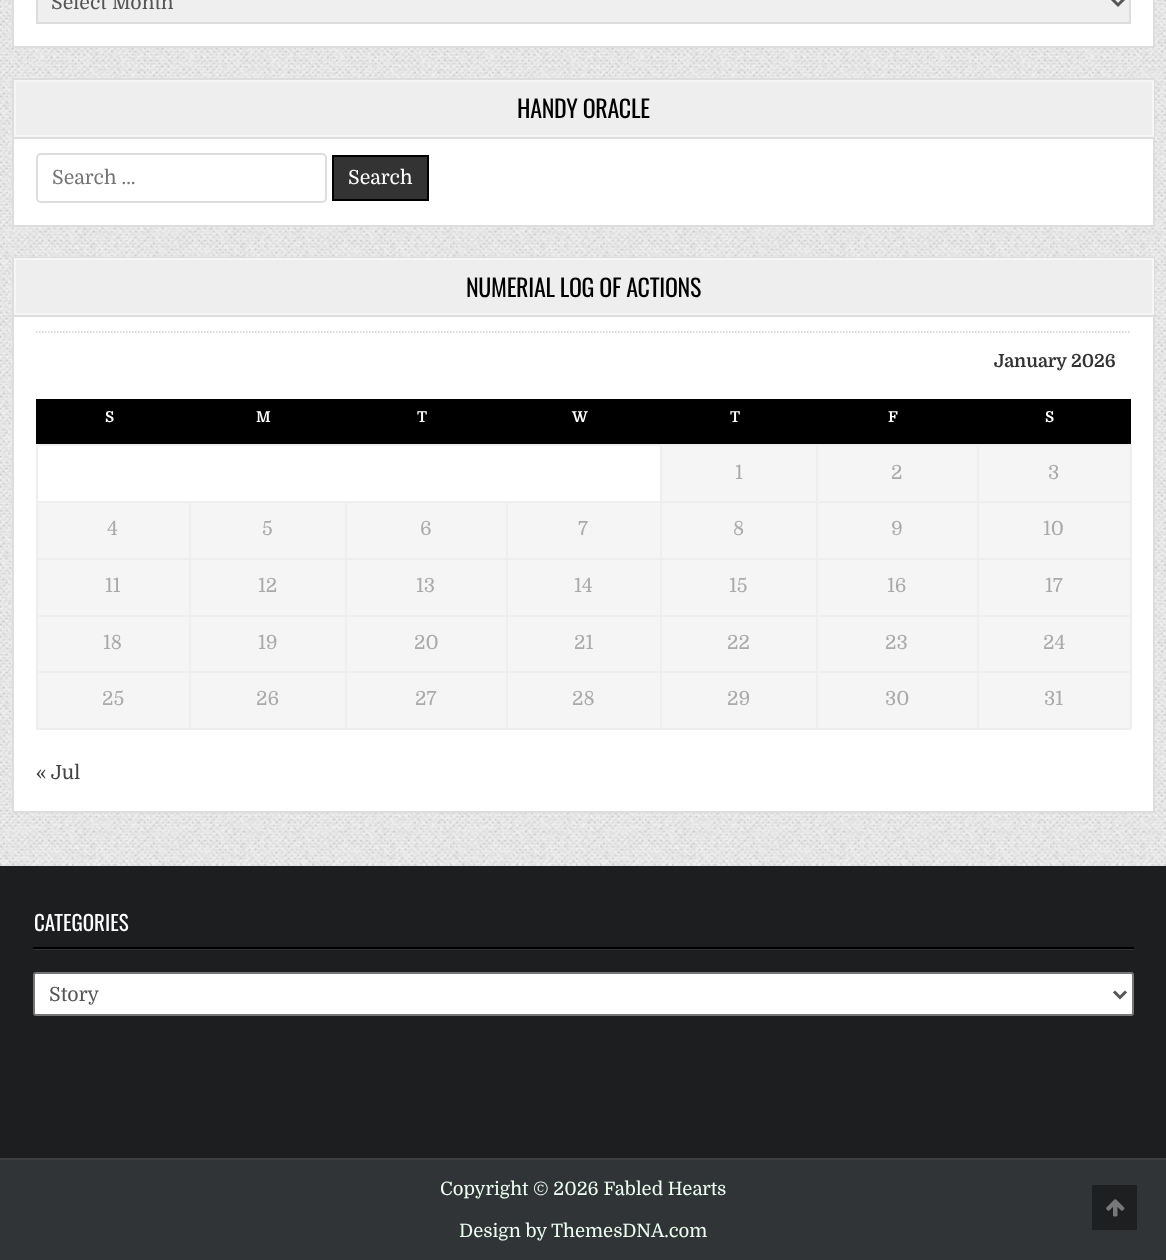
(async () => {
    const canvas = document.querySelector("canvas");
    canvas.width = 1166;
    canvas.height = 1260;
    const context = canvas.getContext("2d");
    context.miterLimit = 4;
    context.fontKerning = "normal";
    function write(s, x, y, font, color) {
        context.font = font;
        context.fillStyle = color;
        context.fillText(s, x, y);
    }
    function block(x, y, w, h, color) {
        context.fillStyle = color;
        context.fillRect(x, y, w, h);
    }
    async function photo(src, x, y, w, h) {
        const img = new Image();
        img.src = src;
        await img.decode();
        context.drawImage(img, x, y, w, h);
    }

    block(0, 0, 1166, 1260, "rgb(255, 255, 255)");
    await photo("media/1.png", 0, 0, 1166, 866);
    context.beginPath();
    context.rect(13, -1, 1141, 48);
    context.fill();
    context.strokeStyle = "rgb(221, 221, 221)";
    context.lineWidth = 2;
    context.stroke();
    context.fillStyle = "rgb(239, 239, 239)";
    context.beginPath();
    context.rect(37, -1, 1093, 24);
    context.fill();
    context.stroke();
    context.beginPath();
    context.moveTo(1112, -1);
    context.lineTo(1118, 5);
    context.lineTo(1124, -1);
    context.strokeStyle = "rgb(85, 85, 85)";
    context.lineWidth = 3;
    context.stroke();
    write("Select Month", 51, 9, "19.5px Domine", "rgb(85, 85, 85)");
    block(14, 139, 1139, 86, "rgb(255, 255, 255)");
    context.strokeStyle = "rgb(221, 221, 221)";
    context.lineWidth = 2;
    context.strokeRect(13, 79, 1141, 147);
    block(14, 137, 1140, 2, "rgb(221, 221, 221)");
    context.fillStyle = "rgb(238, 238, 238)";
    context.beginPath();
    context.rect(15, 81, 1138, 55);
    context.fill();
    context.strokeStyle = "rgb(246, 246, 246)";
    context.stroke();
    context.letterSpacing = "-0.3px";
    write("HANDY ORACLE", 517, 118, "24px Oswald", "rgb(0, 0, 0)");
    context.beginPath();
    context.roundRect(37, 154, 289, 48, 4);
    context.strokeStyle = "rgb(221, 221, 221)";
    context.stroke();
    context.letterSpacing = "0px";
    write("Search …", 52, 184, "19.5px Domine", "rgb(117, 117, 117)");
    context.fillStyle = "rgb(51, 51, 51)";
    context.beginPath();
    context.rect(333, 156, 95, 44);
    context.fill();
    context.strokeStyle = "rgb(0, 0, 0)";
    context.stroke();
    write("Search", 348, 184, "19.5px Domine", "rgb(255, 255, 255)");
    block(14, 317, 1139, 494, "rgb(255, 255, 255)");
    context.strokeStyle = "rgb(221, 221, 221)";
    context.strokeRect(13, 258, 1141, 554);
    block(14, 315, 1140, 2, "rgb(221, 221, 221)");
    context.fillStyle = "rgb(238, 238, 238)";
    context.beginPath();
    context.rect(15, 259, 1138, 55);
    context.fill();
    context.strokeStyle = "rgb(246, 246, 246)";
    context.stroke();
    context.letterSpacing = "-0.3px";
    write("NUMERIAL LOG OF ACTIONS", 466, 297, "24px Oswald", "rgb(0, 0, 0)");
    context.beginPath();
    context.moveTo(36, 332);
    context.lineTo(1131, 332);
    context.strokeStyle = "rgb(204, 204, 204)";
    context.lineWidth = 1.5;
    context.setLineDash([1.5, 1.5]);
    context.stroke();
    context.letterSpacing = "0px";
    write("January 2026", 994, 367, "bold 18px Domine", "rgb(51, 51, 51)");
    block(36, 399, 1095, 45, "rgb(0, 0, 0)");
    write("S", 105, 422, "bold 15px Domine", "rgb(255, 255, 255)");
    write("M", 256, 422, "bold 15px Domine", "rgb(255, 255, 255)");
    write("T", 417, 422, "bold 15px Domine", "rgb(255, 255, 255)");
    write("W", 572, 422, "bold 15px Domine", "rgb(255, 255, 255)");
    write("T", 730, 422, "bold 15px Domine", "rgb(255, 255, 255)");
    write("F", 888, 422, "bold 15px Domine", "rgb(255, 255, 255)");
    write("S", 1045, 422, "bold 15px Domine", "rgb(255, 255, 255)");
    block(977, 444, 154, 2, "rgb(238, 238, 238)");
    block(977, 501, 154, 2, "rgb(238, 238, 238)");
    block(977, 558, 154, 2, "rgb(238, 238, 238)");
    block(977, 615, 154, 2, "rgb(238, 238, 238)");
    block(977, 671, 154, 2, "rgb(238, 238, 238)");
    block(1130, 671, 2, 58, "rgb(238, 238, 238)");
    block(977, 728, 154, 2, "rgb(238, 238, 238)");
    block(977, 671, 2, 58, "rgb(238, 238, 238)");
    block(816, 671, 162, 2, "rgb(238, 238, 238)");
    block(977, 615, 2, 57, "rgb(238, 238, 238)");
    block(816, 615, 162, 2, "rgb(238, 238, 238)");
    block(977, 558, 2, 59, "rgb(238, 238, 238)");
    block(816, 558, 162, 2, "rgb(238, 238, 238)");
    block(977, 501, 2, 59, "rgb(238, 238, 238)");
    block(816, 501, 162, 2, "rgb(238, 238, 238)");
    block(977, 444, 2, 59, "rgb(238, 238, 238)");
    block(816, 444, 162, 2, "rgb(238, 238, 238)");
    block(816, 728, 162, 2, "rgb(238, 238, 238)");
    block(816, 671, 2, 58, "rgb(238, 238, 238)");
    block(660, 671, 158, 2, "rgb(238, 238, 238)");
    block(816, 615, 2, 57, "rgb(238, 238, 238)");
    block(660, 615, 158, 2, "rgb(238, 238, 238)");
    block(816, 558, 2, 59, "rgb(238, 238, 238)");
    block(660, 558, 158, 2, "rgb(238, 238, 238)");
    block(816, 501, 2, 59, "rgb(238, 238, 238)");
    block(660, 501, 158, 2, "rgb(238, 238, 238)");
    block(816, 444, 2, 59, "rgb(238, 238, 238)");
    block(660, 444, 158, 2, "rgb(238, 238, 238)");
    block(660, 728, 158, 2, "rgb(238, 238, 238)");
    block(660, 671, 2, 58, "rgb(238, 238, 238)");
    block(506, 671, 156, 2, "rgb(238, 238, 238)");
    block(660, 615, 2, 57, "rgb(238, 238, 238)");
    block(506, 615, 156, 2, "rgb(238, 238, 238)");
    block(660, 558, 2, 59, "rgb(238, 238, 238)");
    block(506, 558, 156, 2, "rgb(238, 238, 238)");
    block(660, 501, 2, 59, "rgb(238, 238, 238)");
    block(506, 501, 156, 2, "rgb(238, 238, 238)");
    block(660, 444, 2, 59, "rgb(238, 238, 238)");
    block(36, 444, 626, 2, "rgb(238, 238, 238)");
    block(506, 728, 156, 2, "rgb(238, 238, 238)");
    block(506, 671, 2, 58, "rgb(238, 238, 238)");
    block(345, 671, 162, 2, "rgb(238, 238, 238)");
    block(506, 615, 2, 57, "rgb(238, 238, 238)");
    block(345, 615, 162, 2, "rgb(238, 238, 238)");
    block(506, 558, 2, 59, "rgb(238, 238, 238)");
    block(345, 558, 162, 2, "rgb(238, 238, 238)");
    block(506, 501, 2, 59, "rgb(238, 238, 238)");
    block(345, 501, 162, 2, "rgb(238, 238, 238)");
    block(345, 728, 162, 2, "rgb(238, 238, 238)");
    block(345, 671, 2, 58, "rgb(238, 238, 238)");
    block(189, 671, 158, 2, "rgb(238, 238, 238)");
    block(345, 615, 2, 57, "rgb(238, 238, 238)");
    block(189, 615, 158, 2, "rgb(238, 238, 238)");
    block(345, 558, 2, 59, "rgb(238, 238, 238)");
    block(189, 558, 158, 2, "rgb(238, 238, 238)");
    block(345, 501, 2, 59, "rgb(238, 238, 238)");
    block(189, 501, 158, 2, "rgb(238, 238, 238)");
    block(189, 728, 158, 2, "rgb(238, 238, 238)");
    block(189, 671, 2, 58, "rgb(238, 238, 238)");
    block(36, 671, 155, 2, "rgb(238, 238, 238)");
    block(189, 615, 2, 57, "rgb(238, 238, 238)");
    block(36, 615, 155, 2, "rgb(238, 238, 238)");
    block(189, 558, 2, 59, "rgb(238, 238, 238)");
    block(36, 558, 155, 2, "rgb(238, 238, 238)");
    block(189, 501, 2, 59, "rgb(238, 238, 238)");
    block(36, 501, 155, 2, "rgb(238, 238, 238)");
    block(36, 728, 155, 2, "rgb(238, 238, 238)");
    block(36, 671, 2, 58, "rgb(238, 238, 238)");
    block(36, 615, 2, 57, "rgb(238, 238, 238)");
    block(36, 558, 2, 59, "rgb(238, 238, 238)");
    block(36, 501, 2, 59, "rgb(238, 238, 238)");
    block(36, 444, 2, 59, "rgb(238, 238, 238)");
    block(662, 446, 154, 55, "rgb(245, 245, 245)");
    write("1", 735, 479, "19.5px Domine", "rgb(170, 170, 170)");
    block(818, 446, 159, 55, "rgb(245, 245, 245)");
    write("2", 891, 479, "19.5px Domine", "rgb(170, 170, 170)");
    block(979, 446, 151, 55, "rgb(245, 245, 245)");
    block(1130, 615, 2, 57, "rgb(238, 238, 238)");
    block(1130, 558, 2, 59, "rgb(238, 238, 238)");
    block(1130, 501, 2, 59, "rgb(238, 238, 238)");
    block(1130, 444, 2, 59, "rgb(238, 238, 238)");
    write("3", 1048, 479, "19.5px Domine", "rgb(170, 170, 170)");
    block(38, 503, 151, 55, "rgb(245, 245, 245)");
    write("4", 107, 535, "19.5px Domine", "rgb(170, 170, 170)");
    block(191, 503, 154, 55, "rgb(245, 245, 245)");
    write("5", 262, 535, "19.5px Domine", "rgb(170, 170, 170)");
    block(347, 503, 159, 55, "rgb(245, 245, 245)");
    write("6", 420, 535, "19.5px Domine", "rgb(170, 170, 170)");
    block(508, 503, 152, 55, "rgb(245, 245, 245)");
    write("7", 578, 535, "19.5px Domine", "rgb(170, 170, 170)");
    block(662, 503, 154, 55, "rgb(245, 245, 245)");
    write("8", 733, 535, "19.5px Domine", "rgb(170, 170, 170)");
    block(818, 503, 159, 55, "rgb(245, 245, 245)");
    write("9", 891, 535, "19.5px Domine", "rgb(170, 170, 170)");
    block(979, 503, 151, 55, "rgb(245, 245, 245)");
    write("10", 1043, 535, "19.5px Domine", "rgb(170, 170, 170)");
    block(38, 560, 151, 55, "rgb(245, 245, 245)");
    write("11", 105, 592, "19.5px Domine", "rgb(170, 170, 170)");
    block(191, 560, 154, 55, "rgb(245, 245, 245)");
    write("12", 258, 592, "19.5px Domine", "rgb(170, 170, 170)");
    block(347, 560, 159, 55, "rgb(245, 245, 245)");
    write("13", 416, 592, "19.5px Domine", "rgb(170, 170, 170)");
    block(508, 560, 152, 55, "rgb(245, 245, 245)");
    write("14", 574, 592, "19.5px Domine", "rgb(170, 170, 170)");
    block(662, 560, 154, 55, "rgb(245, 245, 245)");
    write("15", 729, 592, "19.5px Domine", "rgb(170, 170, 170)");
    block(818, 560, 159, 55, "rgb(245, 245, 245)");
    write("16", 887, 592, "19.5px Domine", "rgb(170, 170, 170)");
    block(979, 560, 151, 55, "rgb(245, 245, 245)");
    write("17", 1045, 592, "19.5px Domine", "rgb(170, 170, 170)");
    block(38, 617, 151, 54, "rgb(245, 245, 245)");
    write("18", 103, 649, "19.5px Domine", "rgb(170, 170, 170)");
    block(191, 617, 154, 54, "rgb(245, 245, 245)");
    write("19", 258, 649, "19.5px Domine", "rgb(170, 170, 170)");
    block(347, 617, 159, 54, "rgb(245, 245, 245)");
    write("20", 414, 649, "19.5px Domine", "rgb(170, 170, 170)");
    block(508, 617, 152, 54, "rgb(245, 245, 245)");
    write("21", 574, 649, "19.5px Domine", "rgb(170, 170, 170)");
    block(662, 617, 154, 54, "rgb(245, 245, 245)");
    write("22", 727, 649, "19.5px Domine", "rgb(170, 170, 170)");
    block(818, 617, 159, 54, "rgb(245, 245, 245)");
    write("23", 885, 649, "19.5px Domine", "rgb(170, 170, 170)");
    block(979, 617, 151, 54, "rgb(245, 245, 245)");
    write("24", 1043, 649, "19.5px Domine", "rgb(170, 170, 170)");
    block(38, 673, 151, 55, "rgb(245, 245, 245)");
    write("25", 102, 705, "19.5px Domine", "rgb(170, 170, 170)");
    block(191, 673, 154, 55, "rgb(245, 245, 245)");
    write("26", 256, 705, "19.5px Domine", "rgb(170, 170, 170)");
    block(347, 673, 159, 55, "rgb(245, 245, 245)");
    write("27", 415, 705, "19.5px Domine", "rgb(170, 170, 170)");
    block(508, 673, 152, 55, "rgb(245, 245, 245)");
    write("28", 572, 705, "19.5px Domine", "rgb(170, 170, 170)");
    block(662, 673, 154, 55, "rgb(245, 245, 245)");
    write("29", 727, 705, "19.5px Domine", "rgb(170, 170, 170)");
    block(818, 673, 159, 55, "rgb(245, 245, 245)");
    write("30", 885, 705, "19.5px Domine", "rgb(170, 170, 170)");
    block(979, 673, 151, 55, "rgb(245, 245, 245)");
    write("31", 1044, 705, "19.5px Domine", "rgb(170, 170, 170)");
    write("« Jul", 36, 779, "19.5px Domine", "rgb(68, 68, 68)");
    block(0, 866, 1166, 292, "rgb(29, 30, 32)");
    block(33, 949, 1101, 1, "rgb(51, 51, 51)");
    block(33, 947, 1101, 2, "rgb(0, 0, 0)");
    write("CATEGORIES", 34, 931, "21px Oswald", "rgb(255, 255, 255)");
    context.beginPath();
    context.roundRect(34, 973, 1099, 42, 2);
    context.fill();
    context.strokeStyle = "rgb(118, 118, 118)";
    context.lineWidth = 2;
    context.setLineDash([]);
    context.stroke();
    context.beginPath();
    context.moveTo(1114, 991.5);
    context.lineTo(1120, 997.5);
    context.lineTo(1126, 991.5);
    context.strokeStyle = "rgb(85, 85, 85)";
    context.lineWidth = 3;
    context.stroke();
    write("Story", 49, 1001, "19.5px Domine", "rgb(85, 85, 85)");
    block(0, 1160, 1166, 100, "rgb(48, 52, 54)");
    block(0, 1158, 1166, 2, "rgb(61, 61, 61)");
    write("Copyright © 2026 Fabled Hearts", 440, 1195, "18.5px Domine", "rgb(236, 255, 241)");
    write("Design by ThemesDNA.com", 459, 1237, "18.5px Domine", "rgb(236, 255, 241)");
    block(1092, 1185, 45, 45, "rgb(29, 31, 32)");
    await photo("media/2.png", 1106, 1199, 19, 18);
})();
